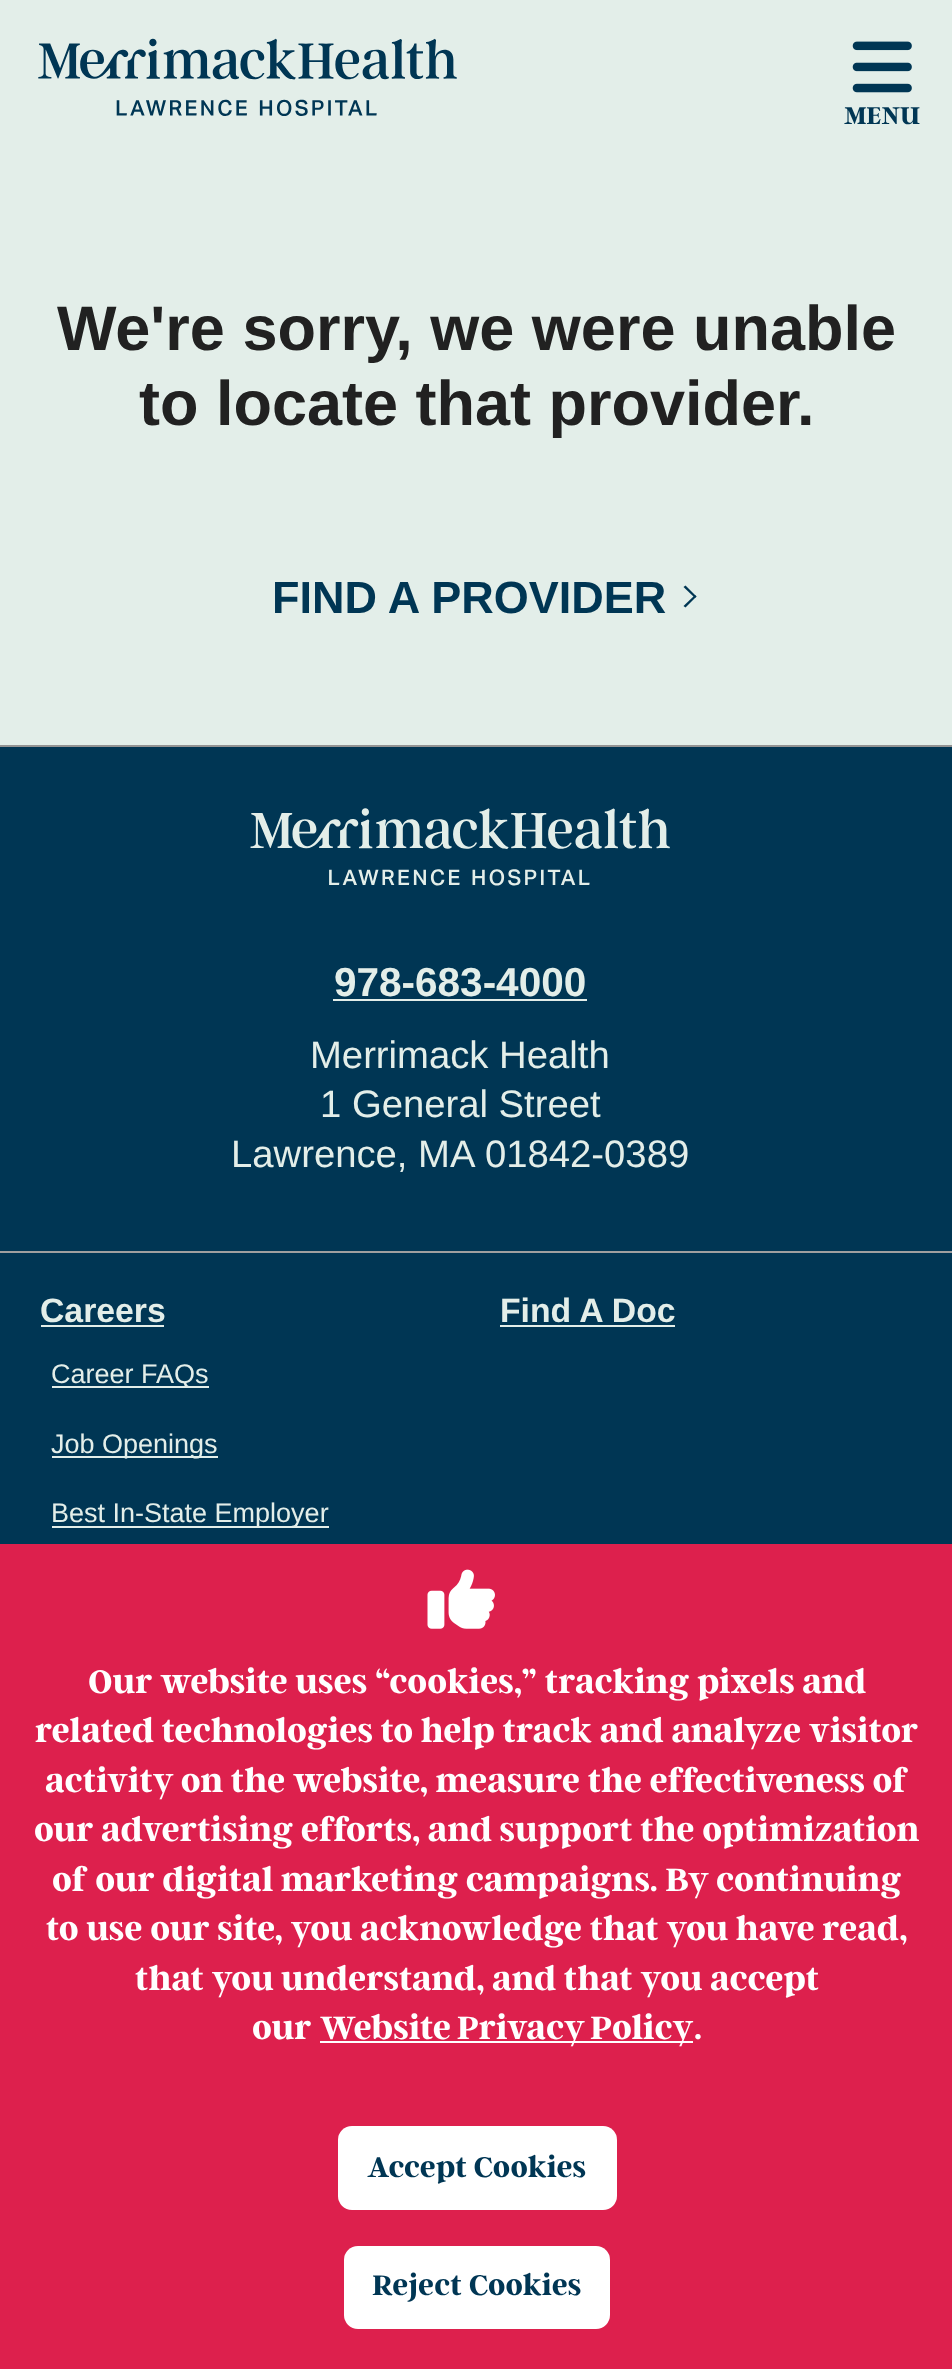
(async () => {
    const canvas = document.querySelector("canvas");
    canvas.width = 952;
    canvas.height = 2369;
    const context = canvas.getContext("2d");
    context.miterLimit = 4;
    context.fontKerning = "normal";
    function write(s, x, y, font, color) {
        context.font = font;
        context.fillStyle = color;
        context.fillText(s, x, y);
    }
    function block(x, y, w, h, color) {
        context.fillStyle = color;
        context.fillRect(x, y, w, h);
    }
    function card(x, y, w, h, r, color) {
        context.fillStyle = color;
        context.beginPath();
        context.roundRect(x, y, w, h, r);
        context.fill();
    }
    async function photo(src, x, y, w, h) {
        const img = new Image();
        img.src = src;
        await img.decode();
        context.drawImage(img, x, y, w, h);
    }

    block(0, 0, 952, 2369, "rgb(227, 238, 233)");
    await photo("media/1.png", 38, 38, 419, 78);
    await photo("media/2.png", 852, 41, 60, 52);
    write("MENU", 844, 124, "bold 27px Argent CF", "rgb(0, 54, 84)");
    write("We're sorry, we were unable", 57, 350, "bold 63px Liberation Sans", "rgb(33, 33, 33)");
    write("to locate that provider.", 139, 425, "bold 63px Liberation Sans", "rgb(33, 33, 33)");
    write("FIND A PROVIDER", 272, 613, "bold 45px Liberation Sans", "rgb(0, 54, 84)");
    context.beginPath();
    context.moveTo(685.5, 585.5);
    context.lineTo(696.5, 596.5);
    context.lineTo(695, 598);
    context.lineTo(683.5, 587);
    context.closePath();
    context.fill();
    context.beginPath();
    context.moveTo(695, 595);
    context.lineTo(696.5, 596.5);
    context.lineTo(685.5, 607.5);
    context.lineTo(683.5, 606);
    context.closePath();
    context.fill();
    block(0, 747, 952, 797, "rgb(0, 54, 84)");
    block(0, 745, 952, 2, "rgb(147, 147, 147)");
    block(0, 1251, 952, 2, "rgb(159, 159, 159)");
    await photo("media/3.png", 250, 808, 420, 78);
    write("978-683-4000", 334, 996, "bold 40.5px Liberation Sans", "rgb(227, 238, 233)");
    block(333, 999, 254, 2, "rgb(227, 238, 233)");
    write("Merrimack Health", 310, 1068, "38.25px Liberation Sans", "rgb(227, 238, 233)");
    write("1 General Street", 320, 1117, "38.25px Liberation Sans", "rgb(227, 238, 233)");
    write("Lawrence, MA", 231, 1167, "38.25px Liberation Sans", "rgb(227, 238, 233)");
    write("01842-0389", 485, 1167, "38.25px Liberation Sans", "rgb(227, 238, 233)");
    write("Careers", 40, 1322, "bold 33.75px Liberation Sans", "rgb(227, 238, 233)");
    block(41, 1325, 123, 2, "rgb(227, 238, 233)");
    block(52, 1386, 157, 2, "rgb(227, 238, 233)");
    write("Career FAQs", 51, 1383, "27px Liberation Sans", "rgb(227, 238, 233)");
    block(52, 1456, 166, 2, "rgb(227, 238, 233)");
    write("Job Openings", 51, 1453, "27px Liberation Sans", "rgb(227, 238, 233)");
    block(52, 1526, 277, 2, "rgb(227, 238, 233)");
    write("Best In-State Employer", 51, 1522, "27px Liberation Sans", "rgb(227, 238, 233)");
    write("Find A Doc", 500, 1322, "bold 33.75px Liberation Sans", "rgb(227, 238, 233)");
    block(500, 1325, 175, 2, "rgb(227, 238, 233)");
    block(0, 1544, 952, 825, "rgb(221, 32, 77)");
    await photo("media/4.png", 427, 1569, 68, 60);
    write("Our website uses “cookies,” tracking pixels and", 88, 1693, "bold 36px Argent CF", "rgb(255, 255, 255)");
    write("related technologies to help track and analyze visitor", 35, 1742, "bold 36px Argent CF", "rgb(255, 255, 255)");
    write("activity on the website, measure the effectiveness of", 45, 1792, "bold 36px Argent CF", "rgb(255, 255, 255)");
    write("our advertising efforts, and support the optimization", 34, 1841, "bold 36px Argent CF", "rgb(255, 255, 255)");
    write("of our digital marketing campaigns. By continuing", 52, 1891, "bold 36px Argent CF", "rgb(255, 255, 255)");
    write("to use our site, you acknowledge that you have read,", 46, 1940, "bold 36px Argent CF", "rgb(255, 255, 255)");
    write("that you understand, and that you accept", 135, 1990, "bold 36px Argent CF", "rgb(255, 255, 255)");
    write("our", 252, 2039, "bold 36px Argent CF", "rgb(255, 255, 255)");
    block(320, 2041, 373, 2, "rgb(255, 255, 255)");
    context.wordSpacing = "-2px";
    write("Website Privacy Policy", 320, 2039, "bold 36px Argent CF", "rgb(255, 255, 255)");
    context.wordSpacing = "0px";
    write(".", 694, 2039, "bold 36px Argent CF", "rgb(255, 255, 255)");
    card(338, 2126, 279, 84, 14, "rgb(255, 255, 255)");
    write("Accept Cookies", 367, 2177, "bold 31.5px Argent CF", "rgb(0, 54, 84)");
    card(344, 2246, 266, 83, 14, "rgb(255, 255, 255)");
    write("Reject Cookies", 372, 2295, "bold 31.5px Argent CF", "rgb(0, 54, 84)");
})();
